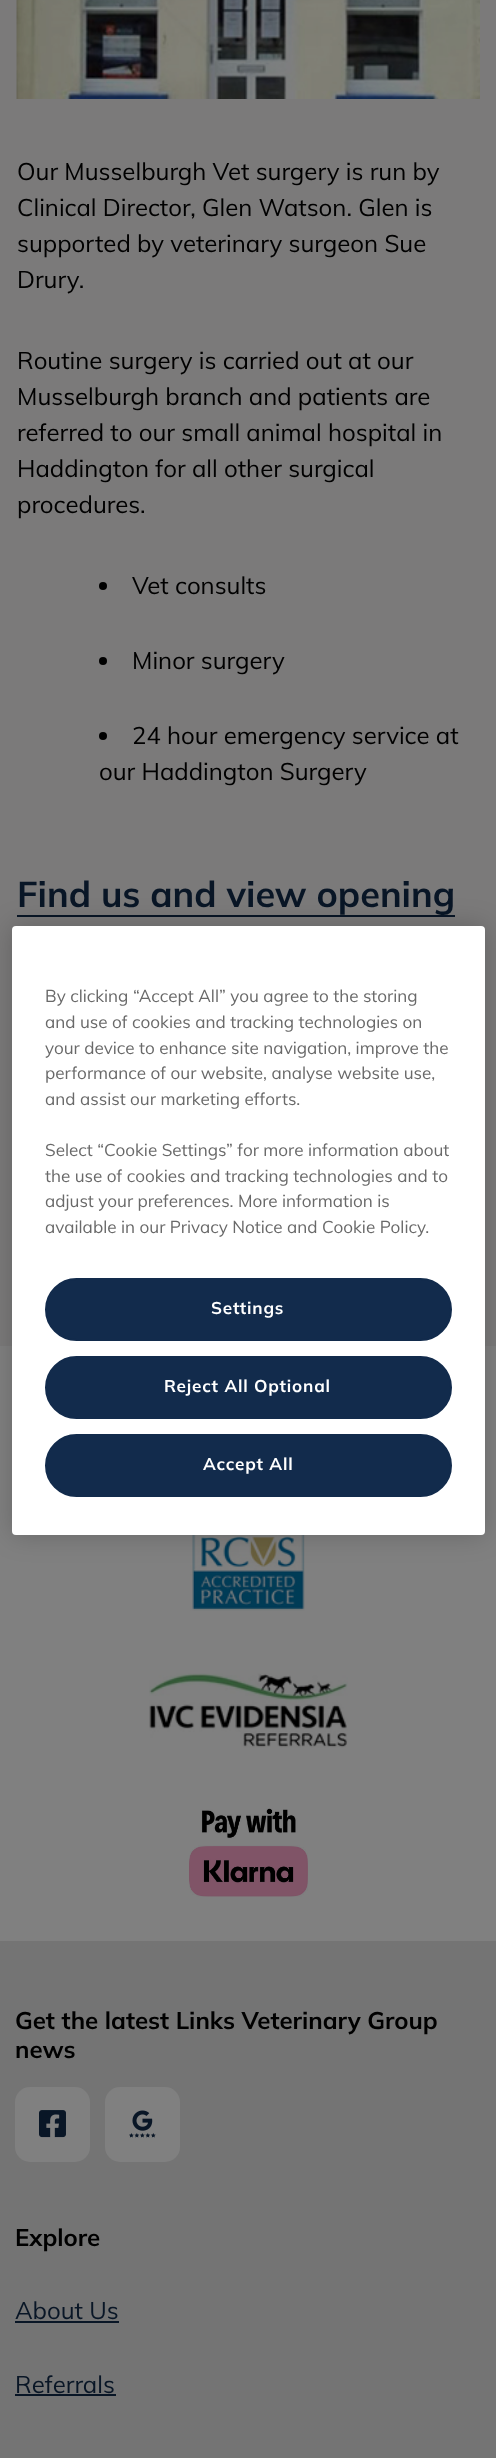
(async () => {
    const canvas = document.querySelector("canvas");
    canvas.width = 496;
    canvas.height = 2458;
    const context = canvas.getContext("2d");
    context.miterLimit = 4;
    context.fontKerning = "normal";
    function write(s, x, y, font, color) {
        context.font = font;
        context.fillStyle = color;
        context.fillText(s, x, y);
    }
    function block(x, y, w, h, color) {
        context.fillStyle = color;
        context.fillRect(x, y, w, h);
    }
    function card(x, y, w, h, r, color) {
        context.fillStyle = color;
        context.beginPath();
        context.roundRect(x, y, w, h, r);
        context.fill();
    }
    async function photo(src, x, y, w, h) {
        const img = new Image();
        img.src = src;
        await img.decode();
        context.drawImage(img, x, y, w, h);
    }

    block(0, 0, 496, 2458, "rgb(128, 128, 128)");
    block(0, 0, 496, 1346, "rgb(123, 122, 122)");
    await photo("media/1.png", 16, 0, 464, 99);
    write("Our Musselburgh Vet surgery is run by", 17, 180, "24px Muli", "rgb(0, 0, 0)");
    write("Clinical Director, Glen Watson. Glen is", 17, 216, "24px Muli", "rgb(0, 0, 0)");
    write("supported by veterinary surgeon Sue", 17, 252, "24px Muli", "rgb(0, 0, 0)");
    write("Drury.", 17, 288, "24px Muli", "rgb(0, 0, 0)");
    write("Routine surgery is carried out at our", 17, 369, "24px Muli", "rgb(0, 0, 0)");
    write("Musselburgh branch and patients are", 17, 405, "24px Muli", "rgb(0, 0, 0)");
    write("referred to our small animal hospital in", 17, 441, "24px Muli", "rgb(0, 0, 0)");
    write("Haddington for all other surgical", 17, 477, "24px Muli", "rgb(0, 0, 0)");
    write("procedures.", 17, 513, "24px Muli", "rgb(0, 0, 0)");
    context.beginPath();
    context.arc(103, 586, 4, 0, Math.PI * 2);
    context.fill();
    write("Vet consults", 132, 594, "24px Muli", "rgb(0, 0, 0)");
    context.beginPath();
    context.arc(103, 661, 4, 0, Math.PI * 2);
    context.fill();
    write("Minor surgery", 132, 669, "24px Muli", "rgb(0, 0, 0)");
    context.beginPath();
    context.arc(103, 736, 4, 0, Math.PI * 2);
    context.fill();
    write("24 hour emergency service at", 132, 744, "24px Muli", "rgb(0, 0, 0)");
    write("our Haddington Surgery", 99, 780, "24px Muli", "rgb(0, 0, 0)");
    block(17, 915, 438, 2, "rgb(9, 22, 38)");
    write("Find us and view opening", 17, 907, "bold 36px Mulish", "rgb(9, 22, 38)");
    await photo("media/2.png", 190, 1535, 115, 76);
    await photo("media/3.png", 149, 1673, 199, 75);
    await photo("media/4.png", 189, 1808, 119, 89);
    block(0, 1941, 496, 517, "rgb(116, 116, 116)");
    write("Get the latest Links Veterinary Group", 15, 2029, "bold 24px Mulish", "rgb(0, 0, 0)");
    write("news", 15, 2058, "bold 24px Mulish", "rgb(0, 0, 0)");
    card(15, 2087, 75, 75, 15, "rgb(128, 128, 128)");
    await photo("media/5.png", 39, 2110, 27, 28);
    card(105, 2087, 75, 75, 15, "rgb(128, 128, 128)");
    await photo("media/6.png", 129, 2110, 27, 28);
    write("Explore", 15, 2246, "bold 24px Mulish", "rgb(0, 0, 0)");
    write("About Us", 15, 2319, "24px Muli", "rgb(9, 22, 38)");
    block(15, 2321, 104, 2, "rgb(9, 22, 38)");
    write("Referrals", 15, 2393, "24px Muli", "rgb(9, 22, 38)");
    block(15, 2394, 101, 2, "rgb(9, 22, 38)");
    context.fillStyle = "rgba(0, 0, 0, 0.2)";
    context.filter = "blur(13.5px)";
    context.beginPath();
    context.roundRect(12, 926, 473, 609, 4);
    context.fill();
    context.filter = "none";
    card(12, 926, 473, 609, 4, "rgb(255, 255, 255)");
    write("By clicking “Accept All” you agree to the storing", 45, 1002, "17.1px Muli", "rgb(105, 105, 105)");
    write("and use of cookies and tracking technologies on", 45, 1028, "17.1px Muli", "rgb(105, 105, 105)");
    write("your device to enhance site navigation, improve the", 45, 1054, "17.1px Muli", "rgb(105, 105, 105)");
    write("performance of our website, analyse website use,", 45, 1079, "17.1px Muli", "rgb(105, 105, 105)");
    write("and assist our marketing efforts.", 45, 1105, "17.1px Muli", "rgb(105, 105, 105)");
    write("Select “Cookie Settings” for more information about", 45, 1156, "17.1px Muli", "rgb(105, 105, 105)");
    write("the use of cookies and tracking technologies and to", 45, 1182, "17.1px Muli", "rgb(105, 105, 105)");
    write("adjust your preferences. More information is", 45, 1207, "17.1px Muli", "rgb(105, 105, 105)");
    write("available in our Privacy Notice and Cookie Policy.", 45, 1233, "17.1px Muli", "rgb(105, 105, 105)");
    context.fillStyle = "rgb(18, 43, 76)";
    context.beginPath();
    context.roundRect(46, 1279, 405, 61, 30.5);
    context.fill();
    context.strokeStyle = "rgb(18, 43, 76)";
    context.lineWidth = 2;
    context.stroke();
    context.letterSpacing = "0.8px";
    write("Settings", 211, 1314, "bold 17.1px Mulish", "rgb(255, 255, 255)");
    context.fillStyle = "rgb(18, 43, 76)";
    context.beginPath();
    context.roundRect(46, 1357, 405, 61, 30.5);
    context.fill();
    context.stroke();
    write("Reject All Optional", 164, 1392, "bold 17.1px Mulish", "rgb(255, 255, 255)");
    context.fillStyle = "rgb(18, 43, 76)";
    context.beginPath();
    context.roundRect(46, 1435, 405, 61, 30.5);
    context.fill();
    context.stroke();
    write("Accept All", 203, 1470, "bold 17.1px Mulish", "rgb(255, 255, 255)");
})();
